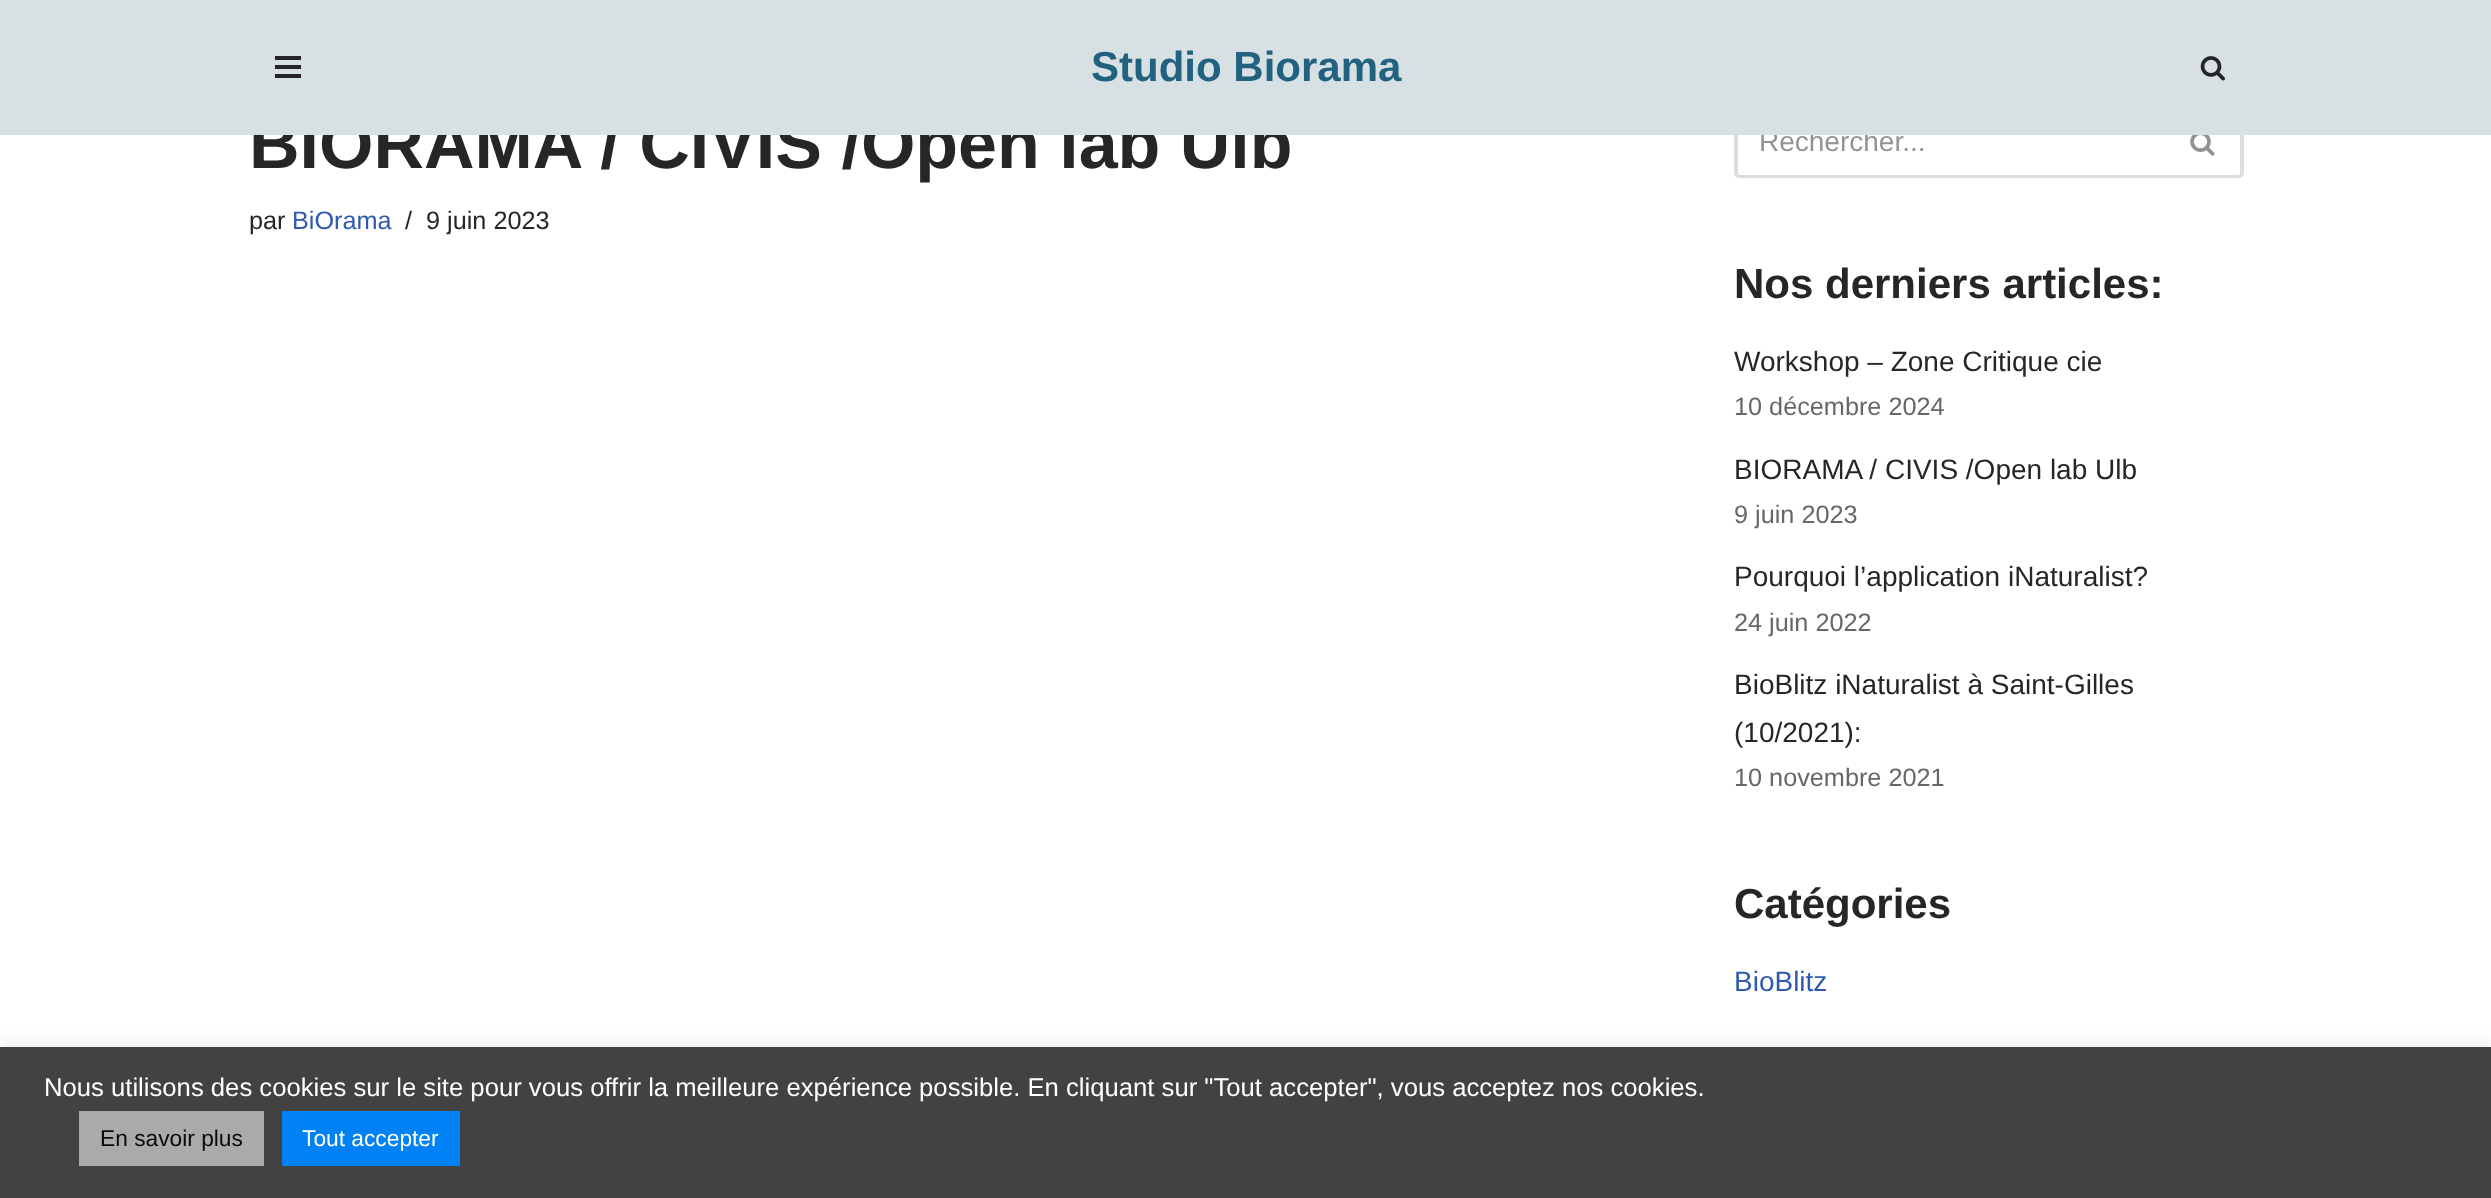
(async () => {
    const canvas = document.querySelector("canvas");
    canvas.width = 2491;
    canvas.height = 1198;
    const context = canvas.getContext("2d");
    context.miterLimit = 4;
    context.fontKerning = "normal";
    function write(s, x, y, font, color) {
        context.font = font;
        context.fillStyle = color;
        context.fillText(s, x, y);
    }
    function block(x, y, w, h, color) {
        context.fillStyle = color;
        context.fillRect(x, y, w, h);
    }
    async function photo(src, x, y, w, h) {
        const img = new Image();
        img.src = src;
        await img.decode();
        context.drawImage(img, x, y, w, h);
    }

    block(0, 0, 2491, 1198, "rgb(255, 255, 255)");
    write("BIORAMA / CIVIS /Open lab Ulb", 249, 168, "bold 70px Liberation Sans", "rgb(39, 38, 38)");
    context.fillStyle = "rgb(221, 221, 221)";
    context.beginPath();
    context.moveTo(1740, 105);
    context.lineTo(2165, 105);
    context.lineTo(2165, 178);
    context.lineTo(1740, 178);
    context.bezierCurveTo(1737, 178, 1734, 176, 1734, 173);
    context.lineTo(1734, 110);
    context.bezierCurveTo(1734, 107, 1737, 105, 1740, 105);
    context.closePath();
    context.moveTo(1740, 108);
    context.lineTo(2165, 108);
    context.lineTo(2165, 175);
    context.lineTo(1740, 175);
    context.bezierCurveTo(1739, 175, 1738, 174, 1738, 173);
    context.lineTo(1738, 110);
    context.bezierCurveTo(1738, 109, 1739, 108, 1740, 108);
    context.closePath();
    context.fill("evenodd");
    write("Rechercher...", 1759, 151, "28px Liberation Sans", "rgb(147, 147, 147)");
    context.fillStyle = "rgb(221, 221, 221)";
    context.beginPath();
    context.moveTo(2165, 105);
    context.lineTo(2238, 105);
    context.bezierCurveTo(2241, 105, 2244, 107, 2244, 110);
    context.lineTo(2244, 173);
    context.bezierCurveTo(2244, 176, 2241, 178, 2238, 178);
    context.lineTo(2165, 178);
    context.closePath();
    context.moveTo(2165, 108);
    context.lineTo(2238, 108);
    context.bezierCurveTo(2239, 108, 2240, 109, 2240, 110);
    context.lineTo(2240, 173);
    context.bezierCurveTo(2240, 174, 2239, 175, 2238, 175);
    context.lineTo(2165, 175);
    context.closePath();
    context.fill("evenodd");
    block(0, 0, 2491, 135, "rgb(215, 224, 227)");
    block(275, 56, 26, 4, "rgb(39, 38, 38)");
    block(275, 65, 26, 4, "rgb(39, 38, 38)");
    block(275, 74, 26, 4, "rgb(39, 38, 38)");
    write("Studio Biorama", 1091, 81, "bold 42px Liberation Sans", "rgb(34, 98, 128)");
    await photo("media/1.png", 2200, 56, 25, 25);
    write("par", 249, 229, "25.25px Liberation Sans", "rgb(39, 38, 38)");
    write("BiOrama", 292, 229, "25.25px Liberation Sans", "rgb(47, 90, 174)");
    write("/", 405, 229, "25.25px Liberation Sans", "rgb(39, 38, 38)");
    write("9 juin 2023", 426, 229, "25.25px Liberation Sans", "rgb(39, 38, 38)");
    await photo("media/2.png", 2190, 135, 25, 21);
    write("Nos derniers articles:", 1734, 298, "bold 42px Liberation Sans", "rgb(39, 38, 38)");
    write("Workshop – Zone Critique cie", 1734, 371, "28px Liberation Sans", "rgb(39, 38, 38)");
    write("10 décembre 2024", 1734, 415, "25.25px Liberation Sans", "rgb(104, 103, 103)");
    write("BIORAMA / CIVIS /Open lab Ulb", 1734, 479, "28px Liberation Sans", "rgb(39, 38, 38)");
    write("9 juin 2023", 1734, 523, "25.25px Liberation Sans", "rgb(104, 103, 103)");
    write("Pourquoi l’application iNaturalist?", 1734, 586, "28px Liberation Sans", "rgb(39, 38, 38)");
    write("24 juin 2022", 1734, 631, "25.25px Liberation Sans", "rgb(104, 103, 103)");
    write("BioBlitz iNaturalist à Saint-Gilles", 1734, 694, "28px Liberation Sans", "rgb(39, 38, 38)");
    write("(10/2021):", 1734, 742, "28px Liberation Sans", "rgb(39, 38, 38)");
    write("10 novembre 2021", 1734, 786, "25.25px Liberation Sans", "rgb(104, 103, 103)");
    write("Catégories", 1734, 918, "bold 42px Liberation Sans", "rgb(39, 38, 38)");
    write("BioBlitz", 1734, 991, "28px Liberation Sans", "rgb(47, 90, 174)");
    context.fillStyle = "rgba(172, 171, 171, 0.3)";
    context.filter = "blur(9px)";
    context.beginPath();
    context.rect(0, 1045, 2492, 152);
    context.fill();
    context.filter = "none";
    block(0, 1047, 2491, 151, "rgb(66, 66, 66)");
    write("Nous utilisons des cookies sur le site pour vous offrir la meilleure expérience possible. En cliquant sur \"Tout accepter\", vous acceptez nos cookies.", 44, 1096, "25.67px Liberation Sans", "rgb(255, 255, 255)");
    block(79, 1111, 185, 55, "rgb(170, 170, 170)");
    write("En savoir plus", 100, 1146, "22.75px Liberation Sans", "rgb(10, 10, 10)");
    block(282, 1111, 178, 55, "rgb(0, 130, 244)");
    write("Tout accepter", 302, 1146, "22.75px Liberation Sans", "rgb(255, 255, 255)");
})();
